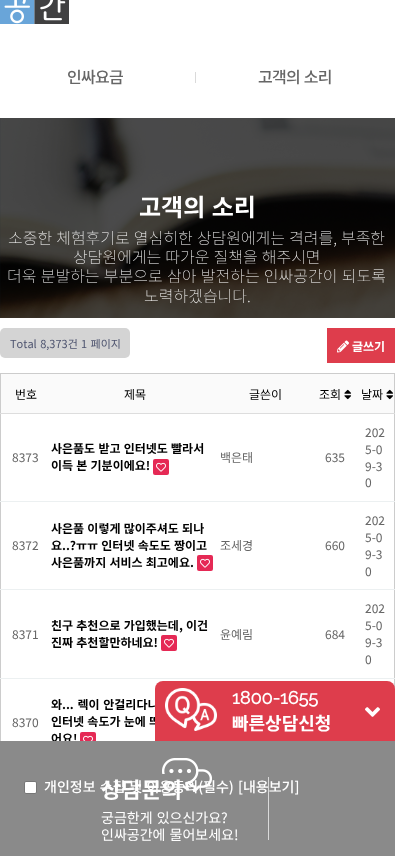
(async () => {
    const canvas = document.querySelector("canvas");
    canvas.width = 395;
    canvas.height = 856;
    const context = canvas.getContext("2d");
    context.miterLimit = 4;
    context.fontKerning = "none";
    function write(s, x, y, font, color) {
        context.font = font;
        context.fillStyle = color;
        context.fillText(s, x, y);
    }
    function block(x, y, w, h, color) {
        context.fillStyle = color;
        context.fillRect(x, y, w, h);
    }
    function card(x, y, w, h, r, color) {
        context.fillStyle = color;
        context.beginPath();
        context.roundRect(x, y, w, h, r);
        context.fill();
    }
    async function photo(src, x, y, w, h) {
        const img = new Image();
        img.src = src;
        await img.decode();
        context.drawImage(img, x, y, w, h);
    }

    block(0, 0, 395, 856, "rgb(255, 255, 255)");
    await photo("media/1.png", 0, 0, 69, 24);
    context.letterSpacing = "-0.75px";
    write("인싸요금", 67, 83, "500 16px Noto Sans KR", "rgb(102, 102, 102)");
    block(195, 72, 1, 11, "rgb(218, 218, 218)");
    context.wordSpacing = "1px";
    write("고객의 소리", 258, 83, "500 16px Noto Sans KR", "rgb(102, 102, 102)");
    await photo("media/2.png", 0, 118, 395, 200);
    context.letterSpacing = "0px";
    write("고객의 소리", 139, 216, "bold 24px Noto Sans KR", "rgb(255, 255, 255)");
    context.wordSpacing = "0.5px";
    write("소중한 체험후기로 열심히한 상담원에게는 격려를, 부족한", 8, 244, "100 16px Noto Sans KR", "rgb(255, 255, 255)");
    write("상담원에게는 따가운 질책을 해주시면", 73, 263, "100 16px Noto Sans KR", "rgb(255, 255, 255)");
    context.wordSpacing = "0.75px";
    write("더욱 분발하는 부분으로 삼아 발전하는 인싸공간이 되도록", 7, 282, "100 16px Noto Sans KR", "rgb(255, 255, 255)");
    context.wordSpacing = "0px";
    write("노력하겠습니다.", 144, 302, "100 16px Noto Sans KR", "rgb(255, 255, 255)");
    card(0, 328, 130, 30, 5, "rgb(212, 212, 212)");
    context.wordSpacing = "1px";
    write("Total 8,373건", 10, 348, "11px Noto Sans KR", "rgb(78, 84, 111)");
    write("1 페이지", 81, 348, "11px Noto Sans KR", "rgb(78, 84, 111)");
    block(327, 328, 68, 35, "rgb(222, 61, 76)");
    await photo("media/3.png", 337, 340, 12, 13);
    context.wordSpacing = "0px";
    write("글쓰기", 352, 351, "bold 12px Noto Sans KR", "rgb(255, 255, 255)");
    block(0, 373, 395, 1, "rgb(204, 204, 204)");
    block(394, 373, 1, 316, "rgb(204, 204, 204)");
    block(0, 373, 1, 368, "rgb(204, 204, 204)");
    block(1, 374, 393, 39, "rgb(250, 250, 250)");
    write("번호", 15, 399, "12px Noto Sans KR", "rgb(0, 0, 0)");
    write("제목", 124, 399, "12px Noto Sans KR", "rgb(0, 0, 0)");
    write("글쓴이", 249, 399, "12px Noto Sans KR", "rgb(0, 0, 0)");
    write("조회", 319, 399, "12px Noto Sans KR", "rgb(0, 0, 0)");
    await photo("media/4.png", 344, 389, 8, 11);
    block(0, 413, 395, 1, "rgb(221, 221, 221)");
    write("날짜", 361, 399, "12px Noto Sans KR", "rgb(0, 0, 0)");
    await photo("media/4.png", 386, 389, 8, 11);
    write("8373", 12, 462, "12px Noto Sans KR", "rgb(102, 102, 102)");
    context.wordSpacing = "0.5px";
    write("사은품도 받고 인터넷도 빨라서", 51, 453, "bold 12px Noto Sans KR", "rgb(0, 0, 0)");
    write("이득 본 기분이에요!", 51, 470, "bold 12px Noto Sans KR", "rgb(0, 0, 0)");
    card(153, 459, 16, 16, 2, "rgb(229, 41, 85)");
    await photo("media/5.png", 156, 462, 10, 10);
    context.wordSpacing = "0px";
    write("백은태", 220, 462, "12px Noto Sans KR", "rgb(102, 102, 102)");
    write("635", 325, 462, "12px Noto Sans KR", "rgb(102, 102, 102)");
    write("202", 365, 437, "12px Noto Sans KR", "rgb(102, 102, 102)");
    write("5-0", 365, 454, "12px Noto Sans KR", "rgb(102, 102, 102)");
    write("9-3", 365, 471, "12px Noto Sans KR", "rgb(102, 102, 102)");
    write("0", 365, 487, "12px Noto Sans KR", "rgb(102, 102, 102)");
    write("8372", 12, 550, "12px Noto Sans KR", "rgb(102, 102, 102)");
    context.wordSpacing = "0.5px";
    write("사은품 이렇게 많이주셔도 되나", 51, 533, "bold 12px Noto Sans KR", "rgb(0, 0, 0)");
    write("요..?ㅠㅠ 인터넷 속도도 짱이고", 51, 550, "bold 12px Noto Sans KR", "rgb(0, 0, 0)");
    write("사은품까지 서비스 최고에요.", 51, 567, "bold 12px Noto Sans KR", "rgb(0, 0, 0)");
    card(197, 555, 16, 16, 2, "rgb(229, 41, 85)");
    await photo("media/5.png", 200, 558, 10, 10);
    context.wordSpacing = "0px";
    write("조세경", 220, 550, "12px Noto Sans KR", "rgb(102, 102, 102)");
    write("660", 325, 550, "12px Noto Sans KR", "rgb(102, 102, 102)");
    block(0, 501, 395, 1, "rgb(236, 240, 241)");
    write("202", 365, 525, "12px Noto Sans KR", "rgb(102, 102, 102)");
    write("5-0", 365, 542, "12px Noto Sans KR", "rgb(102, 102, 102)");
    write("9-3", 365, 559, "12px Noto Sans KR", "rgb(102, 102, 102)");
    write("0", 365, 576, "12px Noto Sans KR", "rgb(102, 102, 102)");
    write("8371", 12, 639, "12px Noto Sans KR", "rgb(102, 102, 102)");
    context.wordSpacing = "0.5px";
    write("친구 추천으로 가입했는데, 이건", 51, 630, "bold 12px Noto Sans KR", "rgb(0, 0, 0)");
    write("진짜 추천할만하네요!", 51, 647, "bold 12px Noto Sans KR", "rgb(0, 0, 0)");
    card(161, 635, 16, 16, 2, "rgb(229, 41, 85)");
    await photo("media/5.png", 164, 638, 10, 10);
    context.wordSpacing = "0px";
    write("윤예림", 220, 639, "12px Noto Sans KR", "rgb(102, 102, 102)");
    write("684", 325, 639, "12px Noto Sans KR", "rgb(102, 102, 102)");
    block(0, 589, 395, 1, "rgb(236, 240, 241)");
    write("202", 365, 613, "12px Noto Sans KR", "rgb(102, 102, 102)");
    write("5-0", 365, 630, "12px Noto Sans KR", "rgb(102, 102, 102)");
    write("9-3", 365, 647, "12px Noto Sans KR", "rgb(102, 102, 102)");
    write("0", 365, 664, "12px Noto Sans KR", "rgb(102, 102, 102)");
    block(0, 678, 395, 1, "rgb(236, 240, 241)");
    write("8370", 12, 727, "12px Noto Sans KR", "rgb(102, 102, 102)");
    context.wordSpacing = "1px";
    write("와... 렉이 안걸리다니", 51, 709, "bold 12px Noto Sans KR", "rgb(0, 0, 0)");
    context.wordSpacing = "0.5px";
    write("인터넷 속도가 눈에 띄", 51, 726, "bold 12px Noto Sans KR", "rgb(0, 0, 0)");
    context.wordSpacing = "0px";
    write("어요!", 51, 743, "bold 12px Noto Sans KR", "rgb(0, 0, 0)");
    card(80, 732, 16, 16, 2, "rgb(229, 41, 85)");
    await photo("media/6.png", 83, 735, 10, 6);
    block(0, 741, 395, 115, "rgb(138, 138, 138)");
    context.fillStyle = "rgb(222, 61, 76)";
    context.beginPath();
    context.roundRect(155, 681, 240, 60, [8, 8, 0, 0]);
    context.fill();
    await photo("media/7.png", 165, 688, 52, 43);
    write("1800-1655", 232, 704, "bold 18px Raleway", "rgb(255, 255, 255)");
    write("빠른상담신청", 232, 730, "bold 18px Noto Sans KR", "rgb(255, 255, 255)");
    await photo("media/8.png", 365, 707, 15, 10);
    await photo("media/9.png", 162, 758, 50, 34);
    write("상담문의", 101, 798, "bold 22px Noto Sans KR", "rgb(255, 255, 255)");
    block(268, 777, 1, 63, "rgb(218, 218, 218)");
    context.wordSpacing = "1px";
    write("궁금한게 있으신가요?", 101, 823, "14px Noto Sans KR", "rgb(255, 255, 255)");
    write("인싸공간에 물어보세요!", 101, 840, "14px Noto Sans KR", "rgb(255, 255, 255)");
    context.beginPath();
    context.roundRect(24.5, 781.5, 12, 12, 1.5);
    context.fill();
    context.strokeStyle = "rgb(118, 118, 118)";
    context.stroke();
    write("개인정보 수집 및 이용동의(필수)", 44, 792, "500 14px Noto Sans KR", "rgb(255, 255, 255)");
    context.wordSpacing = "0px";
    write("[내용보기]", 238, 792, "500 14px Noto Sans KR", "rgb(255, 255, 255)");
})();
